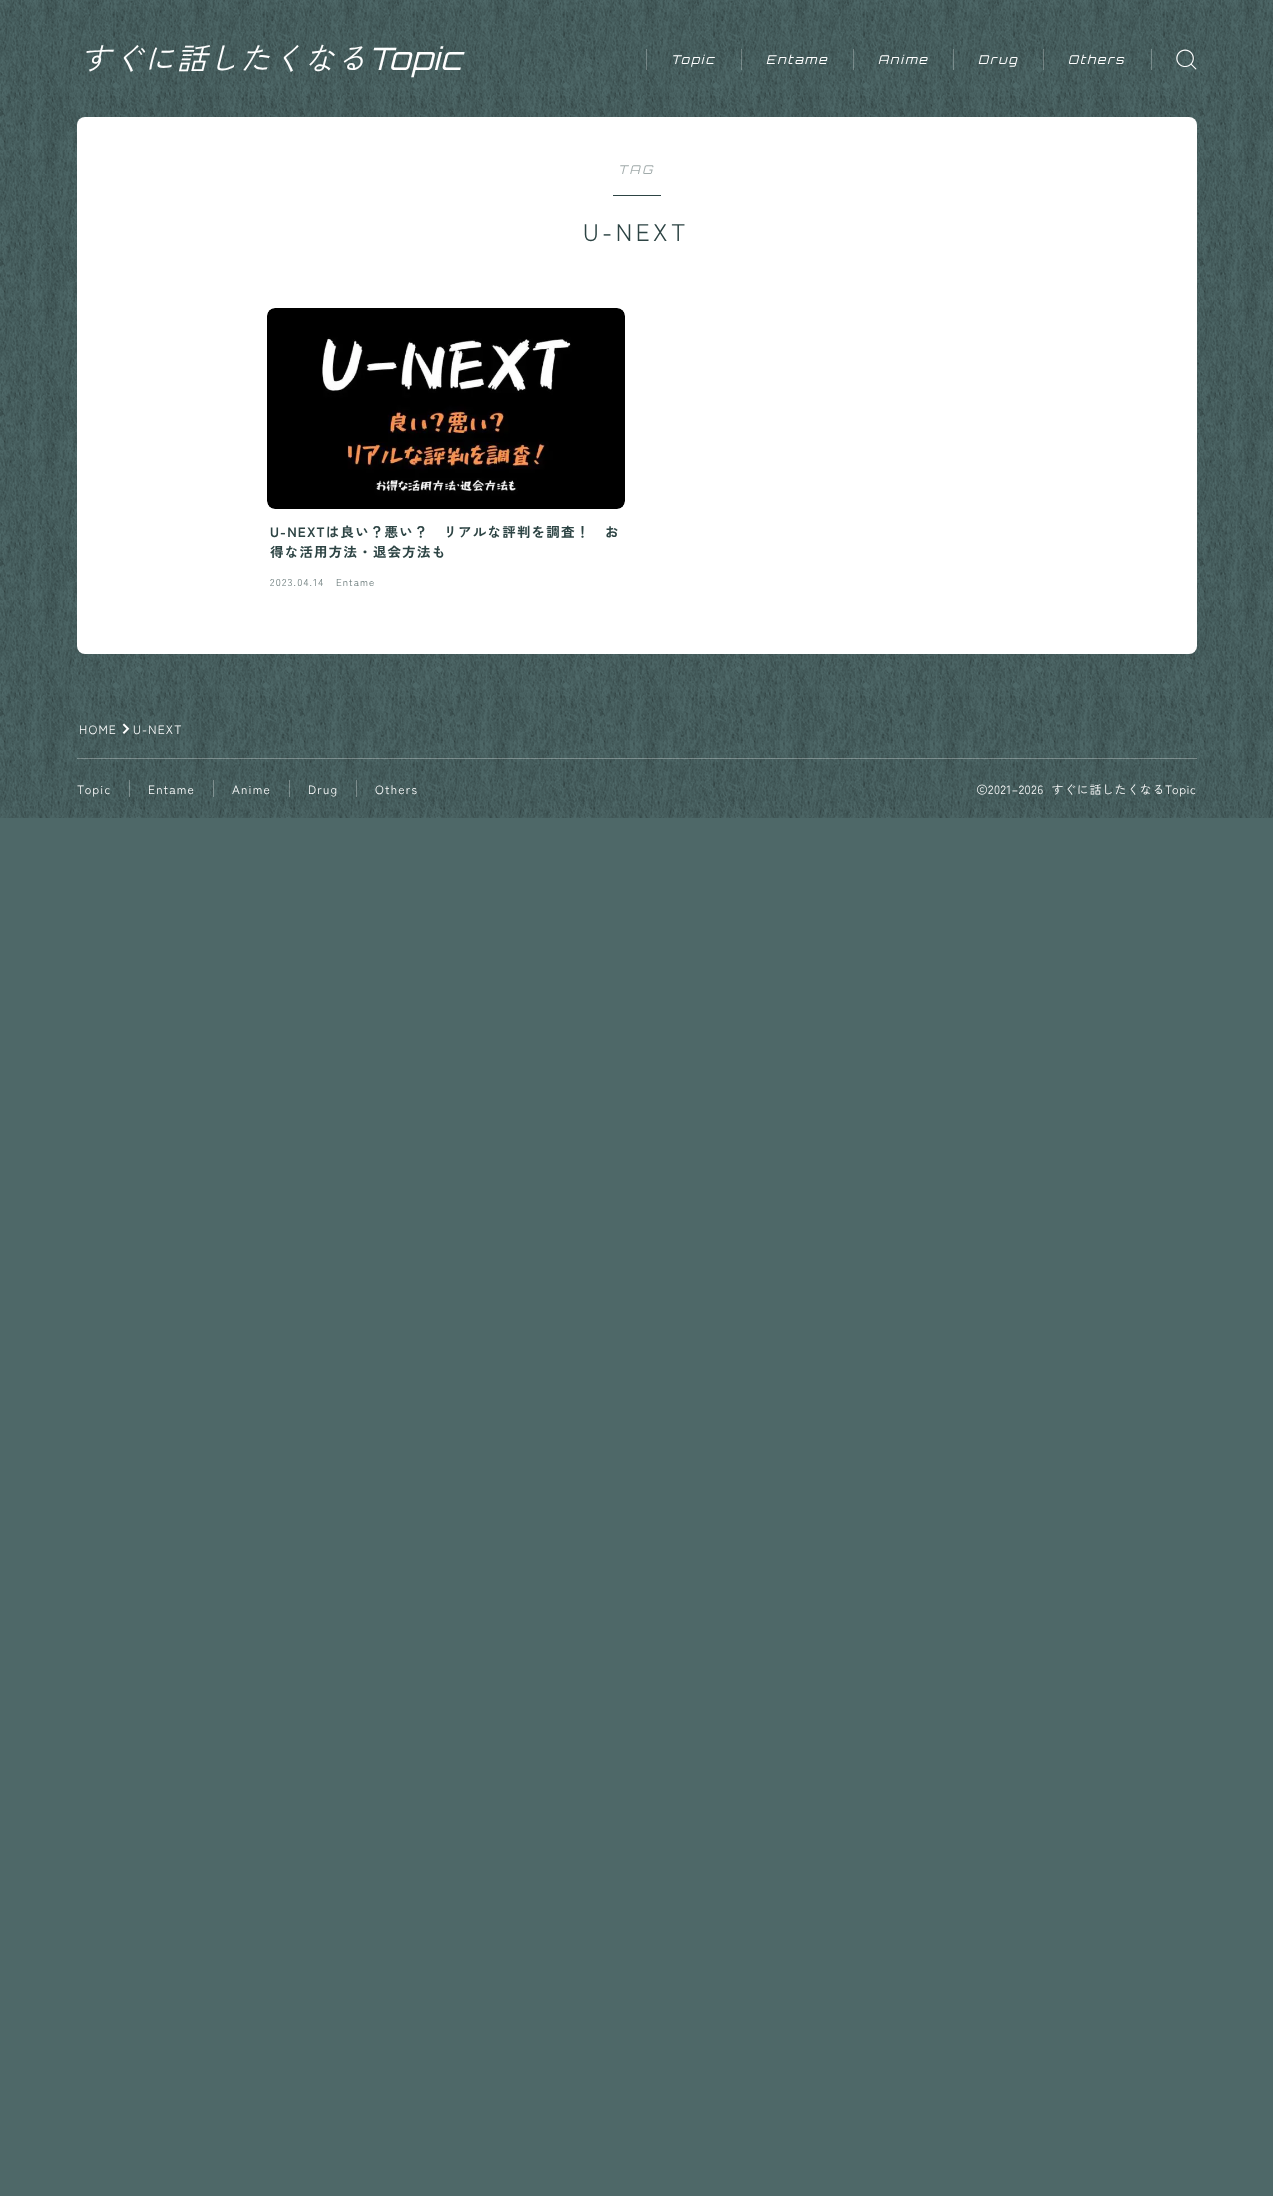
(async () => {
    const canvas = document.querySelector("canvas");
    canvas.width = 1273;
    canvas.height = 2196;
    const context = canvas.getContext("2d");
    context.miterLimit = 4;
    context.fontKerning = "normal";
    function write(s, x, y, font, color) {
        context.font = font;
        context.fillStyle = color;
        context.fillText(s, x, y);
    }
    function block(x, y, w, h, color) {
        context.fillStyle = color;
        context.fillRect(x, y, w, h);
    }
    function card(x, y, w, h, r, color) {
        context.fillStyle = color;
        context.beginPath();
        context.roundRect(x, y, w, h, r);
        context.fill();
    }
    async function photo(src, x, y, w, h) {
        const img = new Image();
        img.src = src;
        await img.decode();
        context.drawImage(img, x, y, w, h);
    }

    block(0, 0, 1273, 2196, "rgb(78, 104, 104)");
    await photo("media/1.png", 0, 0, 1273, 818);
    context.letterSpacing = "1px";
    write("すぐに話したくなる", 80, 70, "italic 31px Zen Kaku Gothic New", "rgb(255, 255, 255)");
    write("Topic", 368, 70, "italic 31px Orbitron", "rgb(255, 255, 255)");
    block(741, 49, 1, 21, "rgba(255, 255, 255, 0.27)");
    block(646, 49, 1, 21, "rgba(255, 255, 255, 0.27)");
    context.letterSpacing = "2px";
    write("Topic", 671, 64, "italic 12px Orbitron", "rgb(255, 255, 255)");
    block(853, 49, 1, 21, "rgba(255, 255, 255, 0.27)");
    write("Entame", 766, 64, "italic 12px Orbitron", "rgb(255, 255, 255)");
    block(953, 49, 1, 21, "rgba(255, 255, 255, 0.27)");
    write("Anime", 878, 64, "italic 12px Orbitron", "rgb(255, 255, 255)");
    block(1043, 49, 1, 21, "rgba(255, 255, 255, 0.27)");
    write("Drug", 978, 64, "italic 12px Orbitron", "rgb(255, 255, 255)");
    block(1151, 49, 1, 21, "rgba(255, 255, 255, 0.27)");
    write("Others", 1068, 64, "italic 12px Orbitron", "rgb(255, 255, 255)");
    await photo("media/2.png", 1176, 49, 21, 21);
    card(77, 117, 1120, 537, 8, "rgb(255, 255, 255)");
    context.letterSpacing = "2.5px";
    write("TAG", 618, 174, "italic 12px Orbitron", "rgb(161, 171, 171)");
    block(613, 195, 48, 1, "rgb(45, 68, 68)");
    context.letterSpacing = "3.5px";
    write("U-NEXT", 583, 241, "24px Zen Kaku Gothic New", "rgb(45, 68, 68)");
    await photo("media/3.png", 267, 308, 358, 201);
    context.letterSpacing = "1.2px";
    write("U-NEXTは良い？悪い？　リアルな評判を調査！　お", 270, 537, "bold 13.5px Zen Kaku Gothic New", "rgb(45, 68, 68)");
    write("得な活用方法・退会方法も", 270, 557, "bold 13.5px Zen Kaku Gothic New", "rgb(45, 68, 68)");
    write("2023.04.14", 270, 586, "10px Zen Kaku Gothic New", "rgb(98, 115, 115)");
    context.letterSpacing = "1px";
    write("Entame", 336, 586, "10px Zen Kaku Gothic New", "rgb(98, 115, 115)");
    context.letterSpacing = "1.2px";
    write("HOME", 79, 734, "12px Zen Kaku Gothic New", "rgb(255, 255, 255)");
    await photo("media/4.png", 122, 723, 8, 11);
    write("U-NEXT", 133, 734, "12px Zen Kaku Gothic New", "rgb(255, 255, 255)");
    block(77, 758, 1120, 1, "rgba(255, 255, 255, 0.3)");
    write("Topic", 77, 794, "12px Zen Kaku Gothic New", "rgb(255, 255, 255)");
    block(129, 780, 1, 17, "rgba(255, 255, 255, 0.3)");
    write("Entame", 148, 794, "12px Zen Kaku Gothic New", "rgb(255, 255, 255)");
    block(213, 780, 1, 17, "rgba(255, 255, 255, 0.3)");
    write("Anime", 232, 794, "12px Zen Kaku Gothic New", "rgb(255, 255, 255)");
    block(289, 780, 1, 17, "rgba(255, 255, 255, 0.3)");
    write("Drug", 308, 794, "12px Zen Kaku Gothic New", "rgb(255, 255, 255)");
    block(356, 780, 1, 17, "rgba(255, 255, 255, 0.3)");
    write("Others", 375, 794, "12px Zen Kaku Gothic New", "rgb(255, 255, 255)");
    await photo("media/5.png", 977, 784, 10, 11);
    context.letterSpacing = "0.6px";
    write("2021–2026  すぐに話したくなるTopic", 988, 794, "12px Zen Kaku Gothic New", "rgb(255, 255, 255)");
})();
